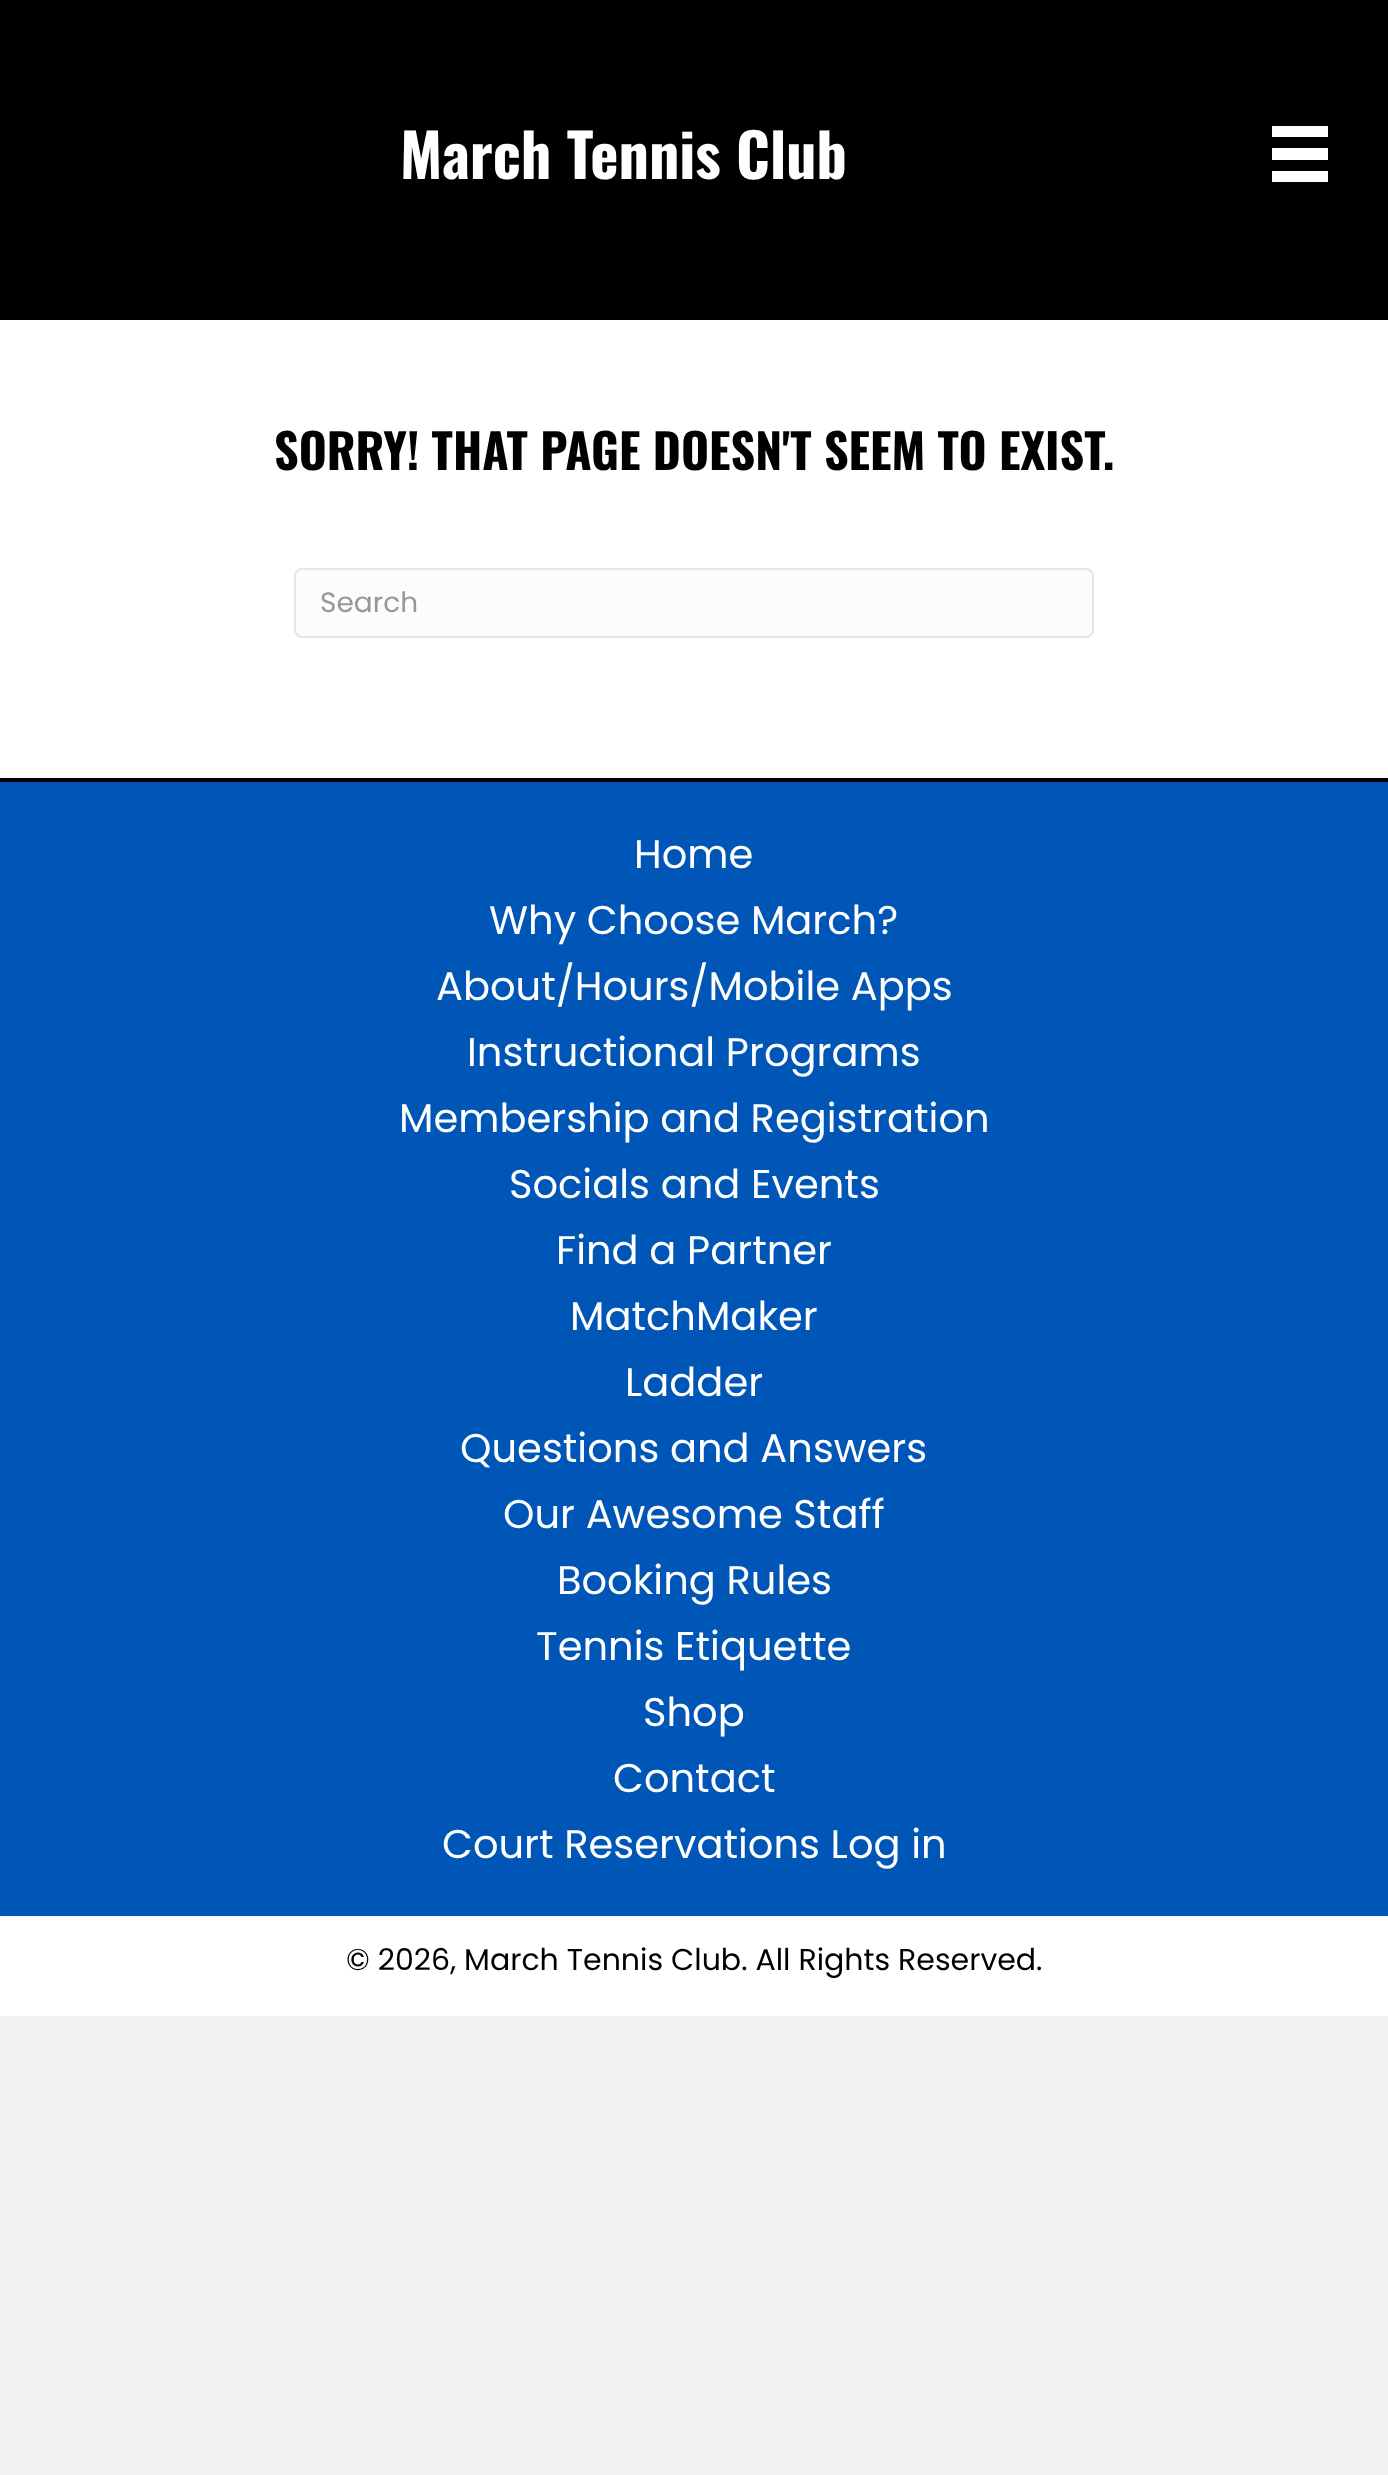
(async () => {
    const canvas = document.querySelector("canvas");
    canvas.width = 1388;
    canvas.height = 2475;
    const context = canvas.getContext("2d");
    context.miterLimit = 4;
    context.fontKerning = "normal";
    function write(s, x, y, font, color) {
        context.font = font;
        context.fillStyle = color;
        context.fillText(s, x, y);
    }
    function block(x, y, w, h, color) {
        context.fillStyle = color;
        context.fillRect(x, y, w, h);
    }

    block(0, 0, 1388, 2475, "rgb(242, 242, 242)");
    block(0, 0, 1388, 320, "rgb(0, 0, 0)");
    write("March Tennis Club", 400, 179, "bold 60px Oswald", "rgb(255, 255, 255)");
    block(1272, 126, 56, 11, "rgb(255, 255, 255)");
    block(1272, 148, 56, 12, "rgb(255, 255, 255)");
    block(1272, 171, 56, 11, "rgb(255, 255, 255)");
    block(0, 320, 1388, 458, "rgb(255, 255, 255)");
    write("SORRY! THAT PAGE DOESN'T SEEM TO EXIST.", 274, 470, "bold 48px Oswald", "rgb(0, 0, 0)");
    context.fillStyle = "rgb(252, 252, 252)";
    context.beginPath();
    context.roundRect(295, 569, 798, 68, 7);
    context.fill();
    context.strokeStyle = "rgb(230, 230, 230)";
    context.lineWidth = 2;
    context.stroke();
    write("Search", 320, 612, "28px Poppins", "rgb(151, 151, 151)");
    block(0, 782, 1388, 1134, "rgb(0, 86, 183)");
    block(0, 778, 1388, 4, "rgb(0, 0, 0)");
    write("Home", 634, 868, "40px Poppins", "rgb(255, 255, 255)");
    write("Why Choose March?", 489, 934, "40px Poppins", "rgb(255, 255, 255)");
    write("About/Hours/Mobile Apps", 436, 1000, "40px Poppins", "rgb(255, 255, 255)");
    write("Instructional Programs", 467, 1066, "40px Poppins", "rgb(255, 255, 255)");
    write("Membership and Registration", 399, 1132, "40px Poppins", "rgb(255, 255, 255)");
    write("Socials and Events", 509, 1198, "40px Poppins", "rgb(255, 255, 255)");
    write("Find a Partner", 556, 1264, "40px Poppins", "rgb(255, 255, 255)");
    write("MatchMaker", 570, 1330, "40px Poppins", "rgb(255, 255, 255)");
    write("Ladder", 625, 1396, "40px Poppins", "rgb(255, 255, 255)");
    write("Questions and Answers", 460, 1462, "40px Poppins", "rgb(255, 255, 255)");
    write("Our Awesome Staff", 503, 1528, "40px Poppins", "rgb(255, 255, 255)");
    write("Booking Rules", 557, 1594, "40px Poppins", "rgb(255, 255, 255)");
    write("Tennis Etiquette", 536, 1660, "40px Poppins", "rgb(255, 255, 255)");
    write("Shop", 643, 1726, "40px Poppins", "rgb(255, 255, 255)");
    write("Contact", 613, 1792, "40px Poppins", "rgb(255, 255, 255)");
    write("Court Reservations Log in", 442, 1858, "40px Poppins", "rgb(255, 255, 255)");
    block(0, 1916, 1388, 100, "rgb(255, 255, 255)");
    write("© 2026, March Tennis Club. All Rights Reserved.", 346, 1970, "30px Poppins", "rgb(0, 0, 0)");
})();
